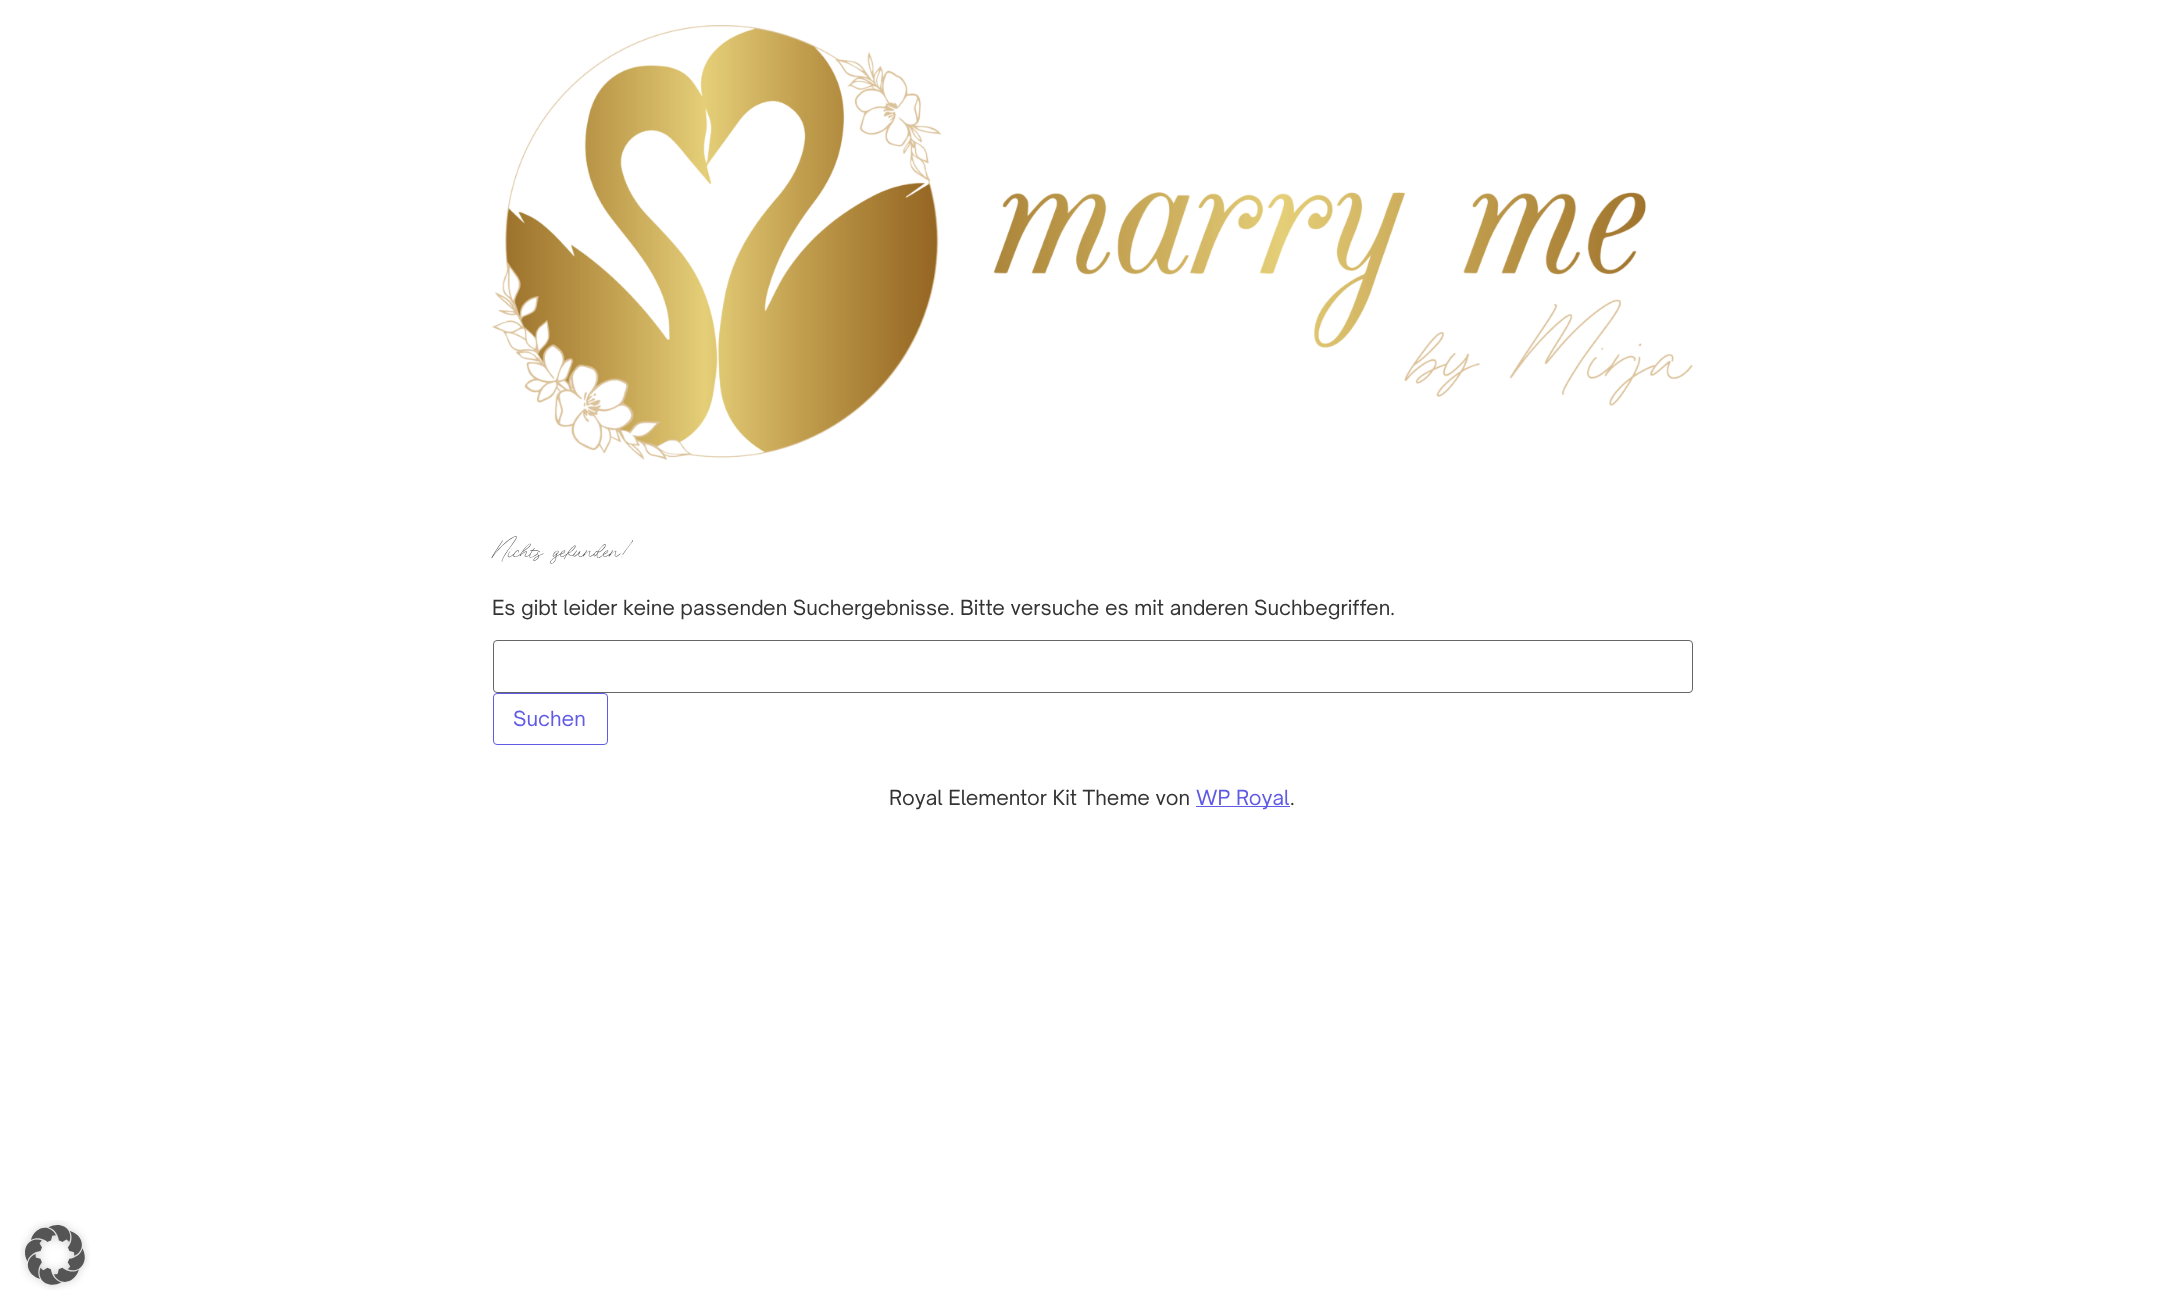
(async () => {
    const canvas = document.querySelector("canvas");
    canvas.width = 2183;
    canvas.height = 1309;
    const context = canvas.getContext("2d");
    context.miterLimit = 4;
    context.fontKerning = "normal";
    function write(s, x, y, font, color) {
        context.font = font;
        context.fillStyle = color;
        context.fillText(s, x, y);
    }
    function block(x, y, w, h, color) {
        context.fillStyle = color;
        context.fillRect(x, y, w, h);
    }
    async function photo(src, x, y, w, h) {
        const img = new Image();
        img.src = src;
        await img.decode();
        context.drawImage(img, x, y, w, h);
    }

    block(0, 0, 2183, 1309, "rgb(255, 255, 255)");
    await photo("media/1.png", 492, 25, 1201, 435);
    write("Nichts gefunden!", 492, 561, "35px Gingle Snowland", "rgb(51, 51, 51)");
    write("Es gibt leider keine passenden Suchergebnisse. Bitte versuche es mit anderen Suchbegriffen.", 492, 615, "20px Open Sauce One", "rgb(51, 51, 51)");
    context.beginPath();
    context.roundRect(493.5, 640.5, 1199, 52, 3.5);
    context.strokeStyle = "rgb(102, 102, 102)";
    context.stroke();
    context.beginPath();
    context.roundRect(493.5, 693.5, 114, 51, 3.5);
    context.strokeStyle = "rgb(96, 91, 229)";
    context.stroke();
    write("Suchen", 513, 726, "20px Open Sauce One", "rgb(96, 91, 229)");
    write("Royal Elementor Kit Theme von", 889, 805, "20px Open Sauce One", "rgb(51, 51, 51)");
    block(1196, 806, 94, 1, "rgb(96, 91, 229)");
    write("WP Royal", 1196, 805, "20px Open Sauce One", "rgb(96, 91, 229)");
    write(".", 1290, 805, "20px Open Sauce One", "rgb(51, 51, 51)");
    await photo("media/2.png", 20, 1220, 70, 70);
})();
